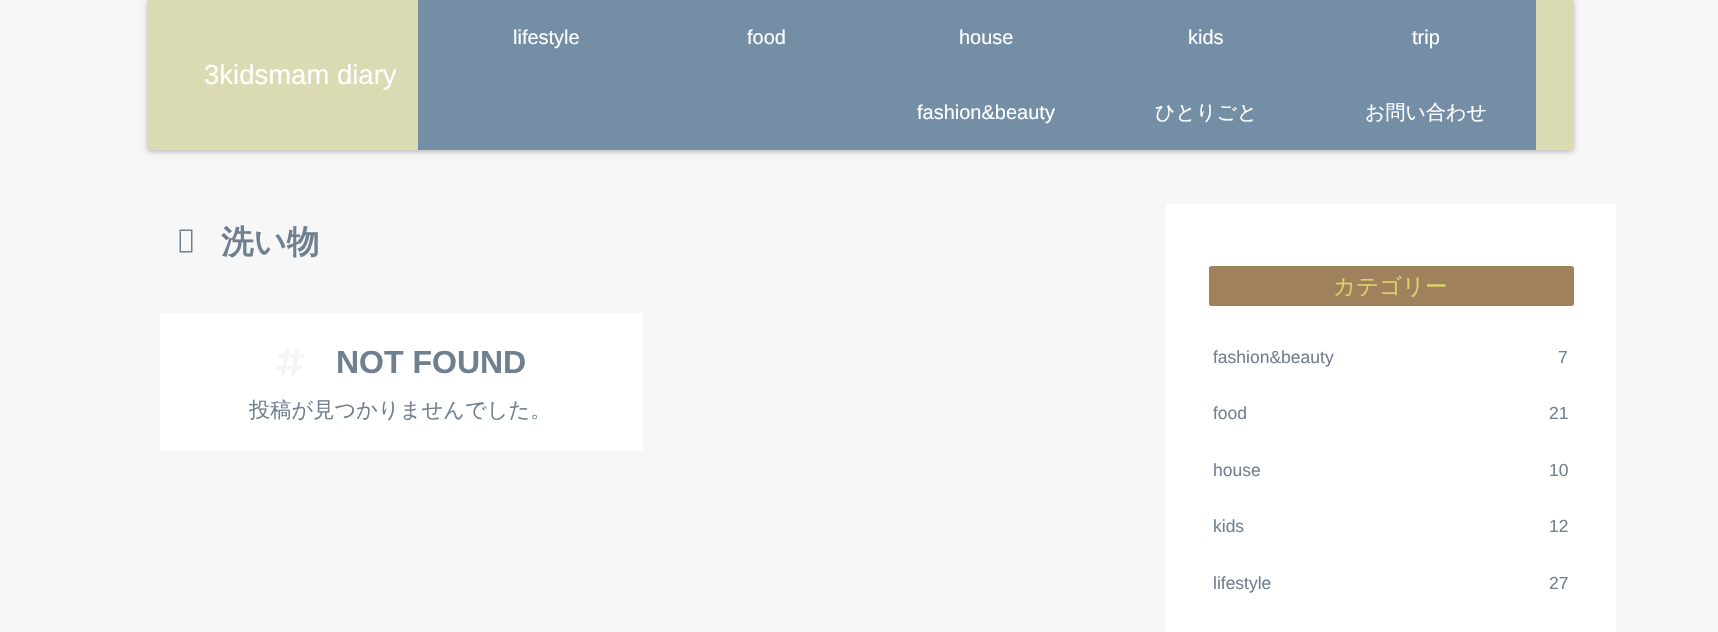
#include "include/core/SkBlurTypes.h"
#include "include/core/SkCanvas.h"
#include "include/core/SkData.h"
#include "include/core/SkFont.h"
#include "include/core/SkFontMgr.h"
#include "include/core/SkImage.h"
#include "include/core/SkMaskFilter.h"
#include "include/core/SkPaint.h"
#include "include/core/SkPathBuilder.h"
#include "include/core/SkTextBlob.h"
#include "include/effects/SkDashPathEffect.h"
#include "include/effects/SkGradientShader.h"
#include "include/utils/SkParsePath.h"

extern sk_sp<SkFontMgr> fontMgr;

void draw(SkCanvas* canvas) {
  SkPaint p;
  p.setAntiAlias(true);
  canvas->clear(SkColorSetRGB(247, 247, 247));
  p.setColor(SkColorSetRGB(169, 169, 169));
  p.setMaskFilter(SkMaskFilter::MakeBlur(kNormal_SkBlurStyle, 3));
  canvas->drawRect(SkRect::MakeLTRB(148, 1, 1573, 151), p);
  p.setMaskFilter(nullptr);
  p.setColor(SkColorSetRGB(219, 219, 179));
  canvas->drawRect(SkRect::MakeLTRB(148, 0, 1573, 150), p);
  p.setColor(SkColorSetRGB(116, 142, 165));
  canvas->drawRect(SkRect::MakeLTRB(418, 0, 1536, 150), p);
  p.setColor(SkColorSetRGB(112, 128, 144));
  canvas->drawPath(SkPathBuilder().moveTo(179.5f, 252.5f).lineTo(179.5f, 229.5f).lineTo(192.5f, 229.5f).lineTo(192.5f, 252.5f).close().moveTo(181, 251).lineTo(191, 251).lineTo(191, 231).lineTo(181, 231).close().detach(), p);
  p.setColor(SK_ColorWHITE);
  canvas->drawRect(SkRect::MakeLTRB(160, 313, 643, 451), p);
  canvas->drawImageRect(SkImages::DeferredFromEncodedData(SkData::MakeFromFileName("images/1.png")), SkRect::MakeLTRB(276, 348, 304, 376), SkSamplingOptions());
  canvas->drawRect(SkRect::MakeLTRB(1166, 204, 1616, 632), p);
  p.setColor(SkColorSetRGB(160, 129, 93));
  canvas->drawRoundRect(SkRect::MakeLTRB(1209, 266, 1574, 306), 2.5f, 2.5f, p);
  SkFont font1(fontMgr->matchFamilyStyle("Liberation Sans", SkFontStyle::Normal()), 27.5f);
  font1.setSubpixel(true);
  p.setColor(SK_ColorWHITE);
  canvas->drawString("3kidsmam diary", 204, 84, font1, p);
  SkFont font2(fontMgr->matchFamilyStyle("Liberation Sans", SkFontStyle::Normal()), 20);
  font2.setSubpixel(true);
  canvas->drawString("lifestyle", 513, 44, font2, p);
  canvas->drawString("food", 747, 44, font2, p);
  canvas->drawString("house", 959, 44, font2, p);
  canvas->drawString("kids", 1188, 44, font2, p);
  canvas->drawString("trip", 1412, 44, font2, p);
  canvas->drawString("fashion&beauty", 917, 119, font2, p);
  SkFont font3(fontMgr->matchFamilyStyle("WenQuanYi Zen Hei", SkFontStyle(500, SkFontStyle::kNormal_Width, SkFontStyle::kUpright_Slant)), 20);
  font3.setSubpixel(true);
  canvas->drawString("ひとりごと", 1155, 119, font3, p);
  canvas->drawString("お問い合わせ", 1365, 119, font3, p);
  SkFont font4(fontMgr->matchFamilyStyle("WenQuanYi Zen Hei", SkFontStyle::Bold()), 32.5f);
  font4.setSubpixel(true);
  p.setColor(SkColorSetRGB(112, 128, 144));
  canvas->drawString("洗い物", 221, 253, font4, p);
  SkFont font5(fontMgr->matchFamilyStyle("Liberation Sans", SkFontStyle::Bold()), 32);
  font5.setSubpixel(true);
  canvas->drawString("NOT FOUND", 336, 373, font5, p);
  SkFont font6(fontMgr->matchFamilyStyle("WenQuanYi Zen Hei", SkFontStyle(500, SkFontStyle::kNormal_Width, SkFontStyle::kUpright_Slant)), 21.25f);
  font6.setSubpixel(true);
  canvas->drawString("投稿が見つかりませんでした。", 249, 417, font6, p);
  SkFont font7(fontMgr->matchFamilyStyle("WenQuanYi Zen Hei", SkFontStyle(500, SkFontStyle::kNormal_Width, SkFontStyle::kUpright_Slant)), 22.5f);
  font7.setSubpixel(true);
  p.setColor(SkColorSetRGB(219, 211, 105));
  canvas->drawString("カテゴリー", 1333, 294, font7, p);
  SkFont font8(fontMgr->matchFamilyStyle("Liberation Sans", SkFontStyle::Normal()), 17.5f);
  font8.setSubpixel(true);
  p.setColor(SkColorSetRGB(112, 128, 144));
  canvas->drawString("fashion&beauty", 1213, 363, font8, p);
  canvas->drawString("7", 1558, 363, font8, p);
  canvas->drawString("food", 1213, 419, font8, p);
  canvas->drawString("21", 1549, 419, font8, p);
  canvas->drawString("house", 1213, 476, font8, p);
  canvas->drawString("10", 1549, 476, font8, p);
  canvas->drawString("kids", 1213, 532, font8, p);
  canvas->drawString("12", 1549, 532, font8, p);
  canvas->drawString("lifestyle", 1213, 589, font8, p);
  canvas->drawString("27", 1549, 589, font8, p);
}
